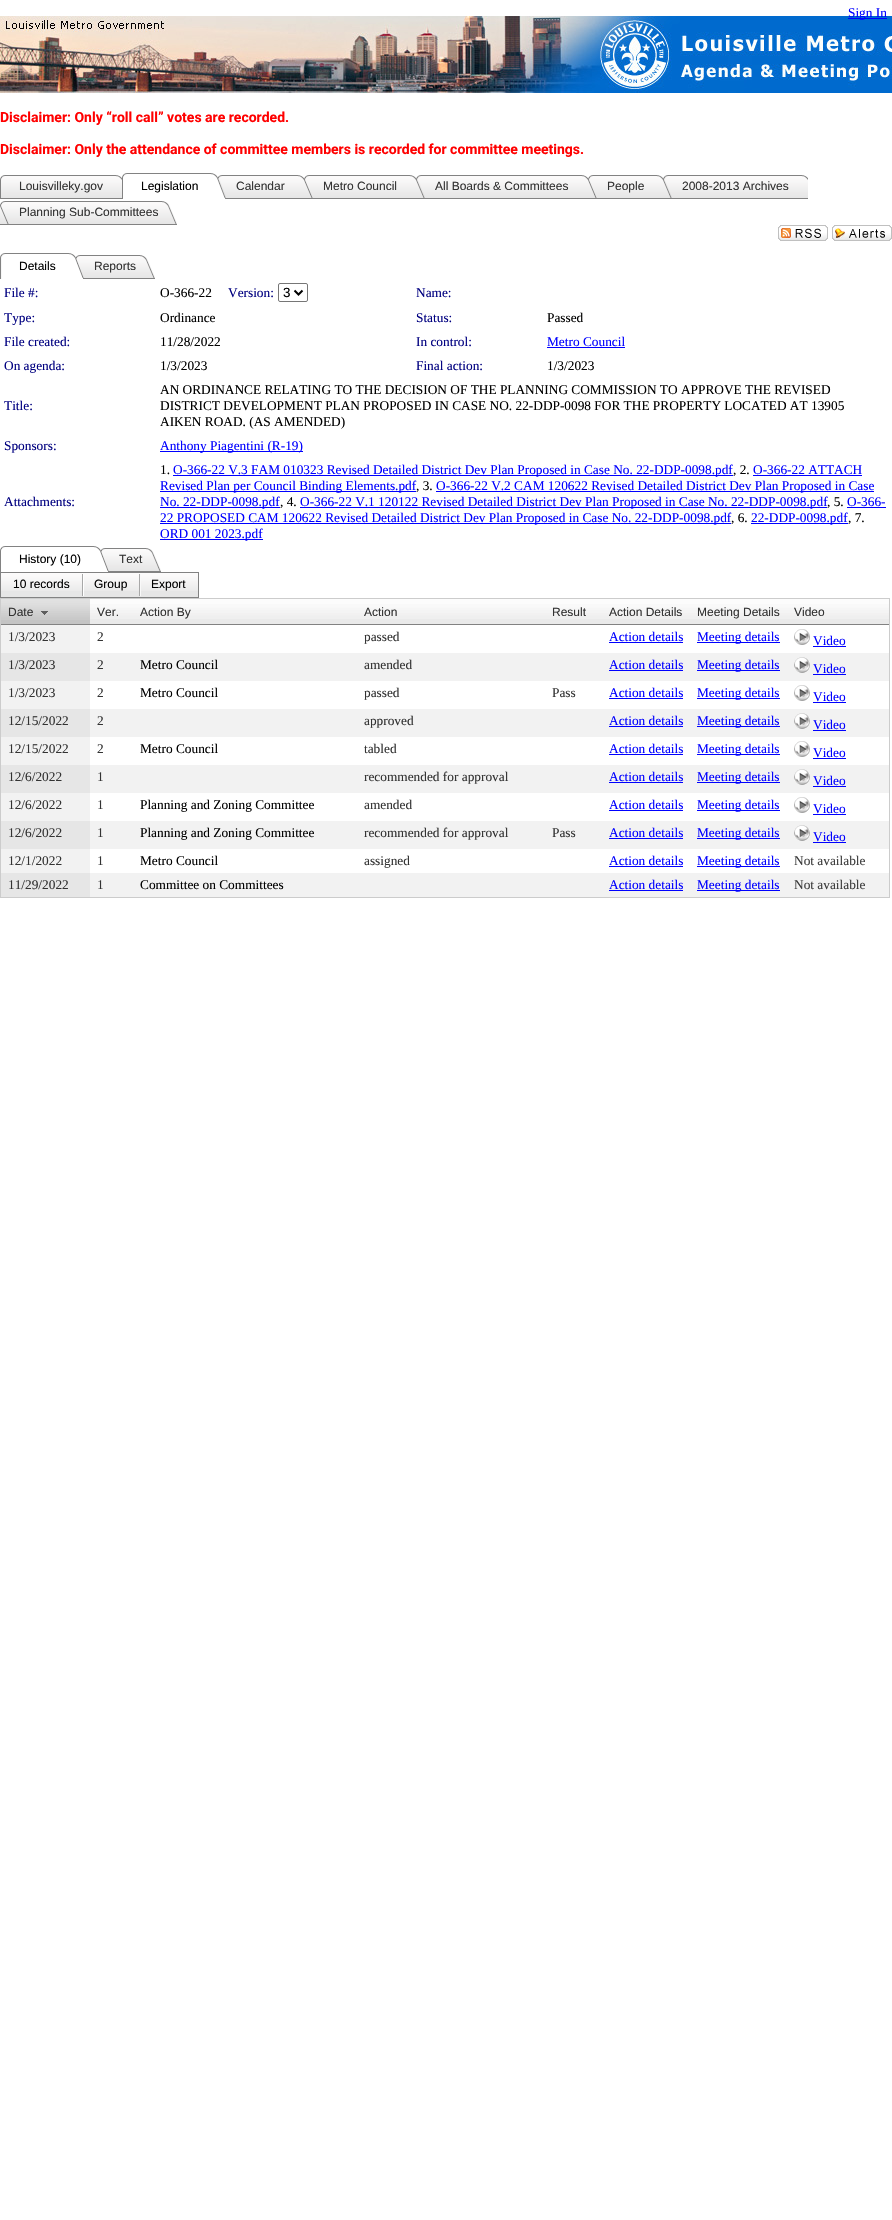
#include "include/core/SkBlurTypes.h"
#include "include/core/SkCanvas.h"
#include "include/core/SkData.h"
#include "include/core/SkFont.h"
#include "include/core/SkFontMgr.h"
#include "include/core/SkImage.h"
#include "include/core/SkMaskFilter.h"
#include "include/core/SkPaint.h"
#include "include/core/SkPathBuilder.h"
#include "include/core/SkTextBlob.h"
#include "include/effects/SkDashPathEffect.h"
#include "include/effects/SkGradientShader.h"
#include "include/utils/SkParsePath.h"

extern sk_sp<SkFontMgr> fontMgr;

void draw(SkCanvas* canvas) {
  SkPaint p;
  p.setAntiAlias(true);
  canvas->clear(SK_ColorWHITE);
  canvas->drawImageRect(SkImages::DeferredFromEncodedData(SkData::MakeFromFileName("images/1.png")), SkRect::MakeLTRB(0, 16, 892, 93), SkSamplingOptions());
  p.setColor(SkColorSetRGB(0, 0, 255));
  canvas->drawRect(SkRect::MakeLTRB(848, 18, 887, 19), p);
  canvas->drawImageRect(SkImages::DeferredFromEncodedData(SkData::MakeFromFileName("images/2.png")), SkRect::MakeLTRB(0, 175, 9, 199), SkSamplingOptions());
  canvas->drawImageRect(SkImages::DeferredFromEncodedData(SkData::MakeFromFileName("images/3.png")), SkRect::MakeLTRB(9, 175, 122, 199), SkSamplingOptions());
  canvas->drawImageRect(SkImages::DeferredFromEncodedData(SkData::MakeFromFileName("images/4.png")), SkRect::MakeLTRB(122, 173, 131, 199), SkSamplingOptions());
  canvas->drawImageRect(SkImages::DeferredFromEncodedData(SkData::MakeFromFileName("images/5.png")), SkRect::MakeLTRB(131, 173, 217, 178), SkSamplingOptions());
  canvas->drawImageRect(SkImages::DeferredFromEncodedData(SkData::MakeFromFileName("images/6.png")), SkRect::MakeLTRB(217, 175, 226, 199), SkSamplingOptions());
  canvas->drawImageRect(SkImages::DeferredFromEncodedData(SkData::MakeFromFileName("images/7.png")), SkRect::MakeLTRB(226, 175, 304, 199), SkSamplingOptions());
  canvas->drawImageRect(SkImages::DeferredFromEncodedData(SkData::MakeFromFileName("images/8.png")), SkRect::MakeLTRB(304, 175, 313, 199), SkSamplingOptions());
  canvas->drawImageRect(SkImages::DeferredFromEncodedData(SkData::MakeFromFileName("images/9.png")), SkRect::MakeLTRB(313, 175, 416, 199), SkSamplingOptions());
  canvas->drawImageRect(SkImages::DeferredFromEncodedData(SkData::MakeFromFileName("images/10.png")), SkRect::MakeLTRB(416, 175, 425, 199), SkSamplingOptions());
  canvas->drawImageRect(SkImages::DeferredFromEncodedData(SkData::MakeFromFileName("images/11.png")), SkRect::MakeLTRB(425, 175, 588, 199), SkSamplingOptions());
  canvas->drawImageRect(SkImages::DeferredFromEncodedData(SkData::MakeFromFileName("images/8.png")), SkRect::MakeLTRB(588, 175, 597, 199), SkSamplingOptions());
  canvas->drawImageRect(SkImages::DeferredFromEncodedData(SkData::MakeFromFileName("images/12.png")), SkRect::MakeLTRB(597, 175, 663, 199), SkSamplingOptions());
  canvas->drawImageRect(SkImages::DeferredFromEncodedData(SkData::MakeFromFileName("images/10.png")), SkRect::MakeLTRB(663, 175, 672, 199), SkSamplingOptions());
  canvas->drawImageRect(SkImages::DeferredFromEncodedData(SkData::MakeFromFileName("images/13.png")), SkRect::MakeLTRB(672, 175, 808, 199), SkSamplingOptions());
  canvas->drawImageRect(SkImages::DeferredFromEncodedData(SkData::MakeFromFileName("images/8.png")), SkRect::MakeLTRB(0, 201, 9, 225), SkSamplingOptions());
  canvas->drawImageRect(SkImages::DeferredFromEncodedData(SkData::MakeFromFileName("images/14.png")), SkRect::MakeLTRB(9, 201, 177, 225), SkSamplingOptions());
  canvas->drawImageRect(SkImages::DeferredFromEncodedData(SkData::MakeFromFileName("images/15.png")), SkRect::MakeLTRB(778, 225, 828, 241), SkSamplingOptions());
  canvas->drawImageRect(SkImages::DeferredFromEncodedData(SkData::MakeFromFileName("images/16.png")), SkRect::MakeLTRB(832, 225, 892, 241), SkSamplingOptions());
  canvas->drawImageRect(SkImages::DeferredFromEncodedData(SkData::MakeFromFileName("images/17.png")), SkRect::MakeLTRB(0, 253, 10, 279), SkSamplingOptions());
  canvas->drawImageRect(SkImages::DeferredFromEncodedData(SkData::MakeFromFileName("images/18.png")), SkRect::MakeLTRB(9, 253, 75, 258), SkSamplingOptions());
  canvas->drawImageRect(SkImages::DeferredFromEncodedData(SkData::MakeFromFileName("images/19.png")), SkRect::MakeLTRB(75, 255, 84, 279), SkSamplingOptions());
  canvas->drawImageRect(SkImages::DeferredFromEncodedData(SkData::MakeFromFileName("images/20.png")), SkRect::MakeLTRB(84, 255, 155, 279), SkSamplingOptions());
  p.setStyle(SkPaint::kStroke_Style);
  p.setStrokeWidth(1);
  p.setColor(SkColorSetRGB(118, 118, 118));
  canvas->drawRoundRect(SkRect::MakeLTRB(278.5f, 283.5f, 307.5f, 301.5f), 1.5f, 1.5f, p);
  p.setStrokeWidth(2);
  p.setColor(SK_ColorBLACK);
  canvas->drawPath(SkPathBuilder().moveTo(294.5f, 290.5f).lineTo(298.5f, 294.5f).lineTo(302.5f, 290.5f).detach(), p);
  p.setStyle(SkPaint::kFill_Style);
  p.setColor(SkColorSetRGB(0, 0, 255));
  canvas->drawRect(SkRect::MakeLTRB(547, 347, 625, 348), p);
  canvas->drawRect(SkRect::MakeLTRB(160, 451, 303, 452), p);
  canvas->drawRect(SkRect::MakeLTRB(173, 475, 733, 476), p);
  canvas->drawRect(SkRect::MakeLTRB(753, 475, 862, 476), p);
  canvas->drawRect(SkRect::MakeLTRB(160, 491, 416, 492), p);
  canvas->drawRect(SkRect::MakeLTRB(436, 491, 874, 492), p);
  canvas->drawRect(SkRect::MakeLTRB(160, 507, 280, 508), p);
  canvas->drawRect(SkRect::MakeLTRB(300, 507, 827, 508), p);
  canvas->drawRect(SkRect::MakeLTRB(847, 507, 886, 508), p);
  canvas->drawRect(SkRect::MakeLTRB(160, 523, 731, 524), p);
  canvas->drawRect(SkRect::MakeLTRB(751, 523, 848, 524), p);
  canvas->drawRect(SkRect::MakeLTRB(160, 539, 263, 540), p);
  canvas->drawImageRect(SkImages::DeferredFromEncodedData(SkData::MakeFromFileName("images/4.png")), SkRect::MakeLTRB(0, 546, 9, 572), SkSamplingOptions());
  canvas->drawImageRect(SkImages::DeferredFromEncodedData(SkData::MakeFromFileName("images/21.png")), SkRect::MakeLTRB(9, 546, 100, 551), SkSamplingOptions());
  canvas->drawImageRect(SkImages::DeferredFromEncodedData(SkData::MakeFromFileName("images/19.png")), SkRect::MakeLTRB(100, 548, 109, 572), SkSamplingOptions());
  canvas->drawImageRect(SkImages::DeferredFromEncodedData(SkData::MakeFromFileName("images/22.png")), SkRect::MakeLTRB(109, 548, 161, 572), SkSamplingOptions());
  p.setColor(SkColorSetRGB(230, 230, 230));
  canvas->drawRect(SkRect::MakeLTRB(1, 591, 198, 597), p);
  canvas->drawImageRect(SkImages::DeferredFromEncodedData(SkData::MakeFromFileName("images/23.png")), SkRect::MakeLTRB(1, 573, 198, 591), SkSamplingOptions());
  p.setStyle(SkPaint::kStroke_Style);
  p.setStrokeWidth(1);
  p.setColor(SkColorSetRGB(130, 130, 130));
  canvas->drawRect(SkRect::MakeLTRB(0.5f, 572.5f, 198.5f, 597.5f), p);
  canvas->drawImageRect(SkImages::DeferredFromEncodedData(SkData::MakeFromFileName("images/24.png")), SkRect::MakeLTRB(82, 574, 84, 596), SkSamplingOptions());
  canvas->drawImageRect(SkImages::DeferredFromEncodedData(SkData::MakeFromFileName("images/25.png")), SkRect::MakeLTRB(139, 574, 141, 596), SkSamplingOptions());
  p.setColor(SkColorSetRGB(204, 204, 204));
  canvas->drawRect(SkRect::MakeLTRB(0.5f, 598.5f, 889.5f, 897.5f), p);
  p.setStyle(SkPaint::kFill_Style);
  p.setColor(SkColorSetRGB(196, 196, 196));
  canvas->drawRect(SkRect::MakeLTRB(1, 620, 90, 624), p);
  canvas->drawImageRect(SkImages::DeferredFromEncodedData(SkData::MakeFromFileName("images/26.png")), SkRect::MakeLTRB(1, 599, 90, 620), SkSamplingOptions());
  p.setColor(SkColorSetRGB(130, 130, 130));
  canvas->drawRect(SkRect::MakeLTRB(1, 624, 889, 625), p);
  canvas->drawImageRect(SkImages::DeferredFromEncodedData(SkData::MakeFromFileName("images/27.png")), SkRect::MakeLTRB(41, 611, 48, 615), SkSamplingOptions());
  p.setColor(SkColorSetRGB(234, 234, 234));
  canvas->drawRect(SkRect::MakeLTRB(90, 619, 889, 624), p);
  canvas->drawImageRect(SkImages::DeferredFromEncodedData(SkData::MakeFromFileName("images/28.png")), SkRect::MakeLTRB(90, 599, 133, 619), SkSamplingOptions());
  canvas->drawImageRect(SkImages::DeferredFromEncodedData(SkData::MakeFromFileName("images/29.png")), SkRect::MakeLTRB(133, 599, 357, 619), SkSamplingOptions());
  canvas->drawImageRect(SkImages::DeferredFromEncodedData(SkData::MakeFromFileName("images/30.png")), SkRect::MakeLTRB(357, 599, 545, 619), SkSamplingOptions());
  canvas->drawImageRect(SkImages::DeferredFromEncodedData(SkData::MakeFromFileName("images/31.png")), SkRect::MakeLTRB(545, 599, 602, 619), SkSamplingOptions());
  canvas->drawImageRect(SkImages::DeferredFromEncodedData(SkData::MakeFromFileName("images/32.png")), SkRect::MakeLTRB(602, 599, 690, 619), SkSamplingOptions());
  canvas->drawImageRect(SkImages::DeferredFromEncodedData(SkData::MakeFromFileName("images/33.png")), SkRect::MakeLTRB(690, 599, 787, 619), SkSamplingOptions());
  canvas->drawImageRect(SkImages::DeferredFromEncodedData(SkData::MakeFromFileName("images/34.png")), SkRect::MakeLTRB(787, 599, 889, 619), SkSamplingOptions());
  p.setColor(SkColorSetRGB(242, 242, 242));
  canvas->drawRect(SkRect::MakeLTRB(1, 625, 90, 653), p);
  p.setColor(SkColorSetRGB(0, 0, 255));
  canvas->drawRect(SkRect::MakeLTRB(609, 642, 683, 643), p);
  canvas->drawRect(SkRect::MakeLTRB(697, 642, 780, 643), p);
  canvas->drawImageRect(SkImages::DeferredFromEncodedData(SkData::MakeFromFileName("images/35.png")), SkRect::MakeLTRB(794, 629, 810, 645), SkSamplingOptions());
  canvas->drawRect(SkRect::MakeLTRB(813, 646, 846, 647), p);
  p.setColor(SkColorSetRGB(242, 242, 242));
  canvas->drawRect(SkRect::MakeLTRB(90, 653, 889, 681), p);
  p.setColor(SkColorSetRGB(230, 230, 230));
  canvas->drawRect(SkRect::MakeLTRB(1, 653, 90, 681), p);
  p.setColor(SkColorSetRGB(0, 0, 255));
  canvas->drawRect(SkRect::MakeLTRB(609, 670, 683, 671), p);
  canvas->drawRect(SkRect::MakeLTRB(697, 670, 780, 671), p);
  canvas->drawImageRect(SkImages::DeferredFromEncodedData(SkData::MakeFromFileName("images/36.png")), SkRect::MakeLTRB(794, 657, 810, 673), SkSamplingOptions());
  canvas->drawRect(SkRect::MakeLTRB(813, 674, 846, 675), p);
  p.setColor(SkColorSetRGB(242, 242, 242));
  canvas->drawRect(SkRect::MakeLTRB(1, 681, 90, 709), p);
  p.setColor(SkColorSetRGB(0, 0, 255));
  canvas->drawRect(SkRect::MakeLTRB(609, 698, 683, 699), p);
  canvas->drawRect(SkRect::MakeLTRB(697, 698, 780, 699), p);
  canvas->drawImageRect(SkImages::DeferredFromEncodedData(SkData::MakeFromFileName("images/35.png")), SkRect::MakeLTRB(794, 685, 810, 701), SkSamplingOptions());
  canvas->drawRect(SkRect::MakeLTRB(813, 702, 846, 703), p);
  p.setColor(SkColorSetRGB(242, 242, 242));
  canvas->drawRect(SkRect::MakeLTRB(90, 709, 889, 737), p);
  p.setColor(SkColorSetRGB(230, 230, 230));
  canvas->drawRect(SkRect::MakeLTRB(1, 709, 90, 737), p);
  p.setColor(SkColorSetRGB(0, 0, 255));
  canvas->drawRect(SkRect::MakeLTRB(609, 726, 683, 727), p);
  canvas->drawRect(SkRect::MakeLTRB(697, 726, 780, 727), p);
  canvas->drawImageRect(SkImages::DeferredFromEncodedData(SkData::MakeFromFileName("images/36.png")), SkRect::MakeLTRB(794, 713, 810, 729), SkSamplingOptions());
  canvas->drawRect(SkRect::MakeLTRB(813, 730, 846, 731), p);
  p.setColor(SkColorSetRGB(242, 242, 242));
  canvas->drawRect(SkRect::MakeLTRB(1, 737, 90, 765), p);
  p.setColor(SkColorSetRGB(0, 0, 255));
  canvas->drawRect(SkRect::MakeLTRB(609, 754, 683, 755), p);
  canvas->drawRect(SkRect::MakeLTRB(697, 754, 780, 755), p);
  canvas->drawImageRect(SkImages::DeferredFromEncodedData(SkData::MakeFromFileName("images/35.png")), SkRect::MakeLTRB(794, 741, 810, 757), SkSamplingOptions());
  canvas->drawRect(SkRect::MakeLTRB(813, 758, 846, 759), p);
  p.setColor(SkColorSetRGB(242, 242, 242));
  canvas->drawRect(SkRect::MakeLTRB(90, 765, 889, 793), p);
  p.setColor(SkColorSetRGB(230, 230, 230));
  canvas->drawRect(SkRect::MakeLTRB(1, 765, 90, 793), p);
  p.setColor(SkColorSetRGB(0, 0, 255));
  canvas->drawRect(SkRect::MakeLTRB(609, 782, 683, 783), p);
  canvas->drawRect(SkRect::MakeLTRB(697, 782, 780, 783), p);
  canvas->drawImageRect(SkImages::DeferredFromEncodedData(SkData::MakeFromFileName("images/36.png")), SkRect::MakeLTRB(794, 769, 810, 785), SkSamplingOptions());
  canvas->drawRect(SkRect::MakeLTRB(813, 786, 846, 787), p);
  p.setColor(SkColorSetRGB(242, 242, 242));
  canvas->drawRect(SkRect::MakeLTRB(1, 793, 90, 821), p);
  p.setColor(SkColorSetRGB(0, 0, 255));
  canvas->drawRect(SkRect::MakeLTRB(609, 810, 683, 811), p);
  canvas->drawRect(SkRect::MakeLTRB(697, 810, 780, 811), p);
  canvas->drawImageRect(SkImages::DeferredFromEncodedData(SkData::MakeFromFileName("images/35.png")), SkRect::MakeLTRB(794, 797, 810, 813), SkSamplingOptions());
  canvas->drawRect(SkRect::MakeLTRB(813, 814, 846, 815), p);
  p.setColor(SkColorSetRGB(242, 242, 242));
  canvas->drawRect(SkRect::MakeLTRB(90, 821, 889, 849), p);
  p.setColor(SkColorSetRGB(230, 230, 230));
  canvas->drawRect(SkRect::MakeLTRB(1, 821, 90, 849), p);
  p.setColor(SkColorSetRGB(0, 0, 255));
  canvas->drawRect(SkRect::MakeLTRB(609, 838, 683, 839), p);
  canvas->drawRect(SkRect::MakeLTRB(697, 838, 780, 839), p);
  canvas->drawImageRect(SkImages::DeferredFromEncodedData(SkData::MakeFromFileName("images/36.png")), SkRect::MakeLTRB(794, 825, 810, 841), SkSamplingOptions());
  canvas->drawRect(SkRect::MakeLTRB(813, 842, 846, 843), p);
  p.setColor(SkColorSetRGB(242, 242, 242));
  canvas->drawRect(SkRect::MakeLTRB(1, 849, 90, 873), p);
  p.setColor(SkColorSetRGB(0, 0, 255));
  canvas->drawRect(SkRect::MakeLTRB(609, 866, 683, 867), p);
  canvas->drawRect(SkRect::MakeLTRB(697, 866, 780, 867), p);
  p.setColor(SkColorSetRGB(242, 242, 242));
  canvas->drawRect(SkRect::MakeLTRB(90, 873, 889, 897), p);
  p.setColor(SkColorSetRGB(230, 230, 230));
  canvas->drawRect(SkRect::MakeLTRB(1, 873, 90, 897), p);
  p.setColor(SkColorSetRGB(0, 0, 255));
  canvas->drawRect(SkRect::MakeLTRB(609, 890, 683, 891), p);
  canvas->drawRect(SkRect::MakeLTRB(697, 890, 780, 891), p);
  SkFont font1(fontMgr->matchFamilyStyle("Liberation Serif", SkFontStyle::Normal()), 13.33f);
  font1.setSubpixel(true);
  canvas->drawString("Sign In", 848, 17, font1, p);
  SkFont font2(fontMgr->matchFamilyStyle("Roboto", SkFontStyle::Bold()), 14);
  font2.setSubpixel(true);
  p.setColor(SkColorSetRGB(255, 0, 0));
  canvas->drawString("Disclaimer: Only “roll call” votes are recorded.", 0, 122, font2, p);
  canvas->drawString("Disclaimer: Only the attendance of committee members is recorded for committee meetings.", 0, 154, font2, p);
  SkFont font3(fontMgr->matchFamilyStyle("Liberation Sans", SkFontStyle::Normal()), 12);
  font3.setSubpixel(true);
  p.setColor(SkColorSetRGB(51, 51, 51));
  canvas->drawString("Louisvilleky.gov", 19, 190, font3, p);
  p.setColor(SK_ColorBLACK);
  canvas->drawString("Legislation", 141, 190, font3, p);
  p.setColor(SkColorSetRGB(51, 51, 51));
  canvas->drawString("Calendar", 236, 190, font3, p);
  canvas->drawString("Metro Council", 323, 190, font3, p);
  canvas->drawString("All Boards & Committees", 435, 190, font3, p);
  canvas->drawString("People", 607, 190, font3, p);
  canvas->drawString("2008-2013 Archives", 682, 190, font3, p);
  canvas->drawString("Planning Sub-Committees", 19, 216, font3, p);
  p.setColor(SK_ColorBLACK);
  canvas->drawString("Details", 19, 270, font3, p);
  p.setColor(SkColorSetRGB(51, 51, 51));
  canvas->drawString("Reports", 94, 270, font3, p);
  p.setColor(SkColorSetRGB(0, 0, 128));
  canvas->drawString("File #:", 4, 297, font1, p);
  p.setColor(SK_ColorBLACK);
  canvas->drawString("O-366-22", 160, 297, font1, p);
  p.setColor(SkColorSetRGB(0, 0, 128));
  canvas->drawString("Version:", 228, 297, font1, p);
  SkFont font4(fontMgr->matchFamilyStyle("Liberation Sans", SkFontStyle::Normal()), 13.33f);
  font4.setSubpixel(true);
  p.setColor(SK_ColorBLACK);
  canvas->drawString("3", 283, 297, font4, p);
  p.setColor(SkColorSetRGB(0, 0, 128));
  canvas->drawString("Name:", 416, 297, font1, p);
  canvas->drawString("Type:", 4, 322, font1, p);
  p.setColor(SK_ColorBLACK);
  canvas->drawString("Ordinance", 160, 322, font1, p);
  p.setColor(SkColorSetRGB(0, 0, 128));
  canvas->drawString("Status:", 416, 322, font1, p);
  p.setColor(SK_ColorBLACK);
  canvas->drawString("Passed", 547, 322, font1, p);
  p.setColor(SkColorSetRGB(0, 0, 128));
  canvas->drawString("File created:", 4, 346, font1, p);
  p.setColor(SK_ColorBLACK);
  canvas->drawString("11/28/2022", 160, 346, font1, p);
  p.setColor(SkColorSetRGB(0, 0, 128));
  canvas->drawString("In control:", 416, 346, font1, p);
  p.setColor(SkColorSetRGB(0, 0, 255));
  canvas->drawString("Metro Council", 547, 346, font1, p);
  p.setColor(SkColorSetRGB(0, 0, 128));
  canvas->drawString("On agenda:", 4, 370, font1, p);
  p.setColor(SK_ColorBLACK);
  canvas->drawString("1/3/2023", 160, 370, font1, p);
  p.setColor(SkColorSetRGB(0, 0, 128));
  canvas->drawString("Final action:", 416, 370, font1, p);
  p.setColor(SK_ColorBLACK);
  canvas->drawString("1/3/2023", 547, 370, font1, p);
  p.setColor(SkColorSetRGB(0, 0, 128));
  canvas->drawString("Title:", 4, 410, font1, p);
  p.setColor(SK_ColorBLACK);
  canvas->drawString("AN ORDINANCE RELATING TO THE DECISION OF THE PLANNING COMMISSION TO APPROVE THE REVISED", 160, 394, font1, p);
  canvas->drawString("DISTRICT DEVELOPMENT PLAN PROPOSED IN CASE NO. 22-DDP-0098 FOR THE PROPERTY LOCATED AT 13905", 160, 410, font1, p);
  canvas->drawString("AIKEN ROAD. (AS AMENDED)", 160, 426, font1, p);
  p.setColor(SkColorSetRGB(0, 0, 128));
  canvas->drawString("Sponsors:", 4, 450, font1, p);
  p.setColor(SkColorSetRGB(0, 0, 255));
  canvas->drawString("Anthony Piagentini (R-19)", 160, 450, font1, p);
  p.setColor(SkColorSetRGB(0, 0, 128));
  canvas->drawString("Attachments:", 4, 506, font1, p);
  p.setColor(SK_ColorBLACK);
  canvas->drawString("1.", 160, 474, font1, p);
  p.setColor(SkColorSetRGB(0, 0, 255));
  canvas->drawString("O-366-22 V.3 FAM 010323 Revised Detailed District Dev Plan Proposed in Case No. 22-DDP-0098.pdf", 173, 474, font1, p);
  p.setColor(SK_ColorBLACK);
  canvas->drawString(", 2.", 733, 474, font1, p);
  p.setColor(SkColorSetRGB(0, 0, 255));
  canvas->drawString("O-366-22 ATTACH", 753, 474, font1, p);
  canvas->drawString("Revised Plan per Council Binding Elements.pdf", 160, 490, font1, p);
  p.setColor(SK_ColorBLACK);
  canvas->drawString(", 3.", 416, 490, font1, p);
  p.setColor(SkColorSetRGB(0, 0, 255));
  canvas->drawString("O-366-22 V.2 CAM 120622 Revised Detailed District Dev Plan Proposed in Case", 436, 490, font1, p);
  canvas->drawString("No. 22-DDP-0098.pdf", 160, 506, font1, p);
  p.setColor(SK_ColorBLACK);
  canvas->drawString(", 4.", 280, 506, font1, p);
  p.setColor(SkColorSetRGB(0, 0, 255));
  canvas->drawString("O-366-22 V.1 120122 Revised Detailed District Dev Plan Proposed in Case No. 22-DDP-0098.pdf", 300, 506, font1, p);
  p.setColor(SK_ColorBLACK);
  canvas->drawString(", 5.", 827, 506, font1, p);
  p.setColor(SkColorSetRGB(0, 0, 255));
  canvas->drawString("O-366-", 847, 506, font1, p);
  canvas->drawString("22 PROPOSED CAM 120622 Revised Detailed District Dev Plan Proposed in Case No. 22-DDP-0098.pdf", 160, 522, font1, p);
  p.setColor(SK_ColorBLACK);
  canvas->drawString(", 6.", 731, 522, font1, p);
  p.setColor(SkColorSetRGB(0, 0, 255));
  canvas->drawString("22-DDP-0098.pdf", 751, 522, font1, p);
  p.setColor(SK_ColorBLACK);
  canvas->drawString(", 7.", 848, 522, font1, p);
  p.setColor(SkColorSetRGB(0, 0, 255));
  canvas->drawString("ORD 001 2023.pdf", 160, 538, font1, p);
  p.setColor(SK_ColorBLACK);
  canvas->drawString("History (10)", 19, 563, font3, p);
  p.setColor(SkColorSetRGB(51, 51, 51));
  canvas->drawString("Text", 119, 563, font3, p);
  p.setColor(SK_ColorBLACK);
  canvas->drawString("10 records", 13, 588, font3, p);
  canvas->drawString("Group", 94, 588, font3, p);
  canvas->drawString("Export", 151, 588, font3, p);
  p.setColor(SkColorSetRGB(51, 51, 51));
  canvas->drawString("Date", 8, 616, font3, p);
  canvas->drawString("Ver.", 97, 616, font3, p);
  canvas->drawString("Action By", 140, 616, font3, p);
  canvas->drawString("Action", 364, 616, font3, p);
  canvas->drawString("Result", 552, 616, font3, p);
  canvas->drawString("Action Details", 609, 616, font3, p);
  canvas->drawString("Meeting Details", 697, 616, font3, p);
  canvas->drawString("Video", 794, 616, font3, p);
  canvas->drawString("1/3/2023", 8, 641, font1, p);
  canvas->drawString("2", 97, 641, font1, p);
  canvas->drawString("passed", 364, 641, font1, p);
  p.setColor(SkColorSetRGB(0, 0, 255));
  canvas->drawString("Action details", 609, 641, font1, p);
  canvas->drawString("Meeting details", 697, 641, font1, p);
  canvas->drawString("Video", 813, 645, font1, p);
  p.setColor(SkColorSetRGB(51, 51, 51));
  canvas->drawString("1/3/2023", 8, 669, font1, p);
  canvas->drawString("2", 97, 669, font1, p);
  p.setColor(SK_ColorBLACK);
  canvas->drawString("Metro Council", 140, 669, font1, p);
  p.setColor(SkColorSetRGB(51, 51, 51));
  canvas->drawString("amended", 364, 669, font1, p);
  p.setColor(SkColorSetRGB(0, 0, 255));
  canvas->drawString("Action details", 609, 669, font1, p);
  canvas->drawString("Meeting details", 697, 669, font1, p);
  canvas->drawString("Video", 813, 673, font1, p);
  p.setColor(SkColorSetRGB(51, 51, 51));
  canvas->drawString("1/3/2023", 8, 697, font1, p);
  canvas->drawString("2", 97, 697, font1, p);
  p.setColor(SK_ColorBLACK);
  canvas->drawString("Metro Council", 140, 697, font1, p);
  p.setColor(SkColorSetRGB(51, 51, 51));
  canvas->drawString("passed", 364, 697, font1, p);
  canvas->drawString("Pass", 552, 697, font1, p);
  p.setColor(SkColorSetRGB(0, 0, 255));
  canvas->drawString("Action details", 609, 697, font1, p);
  canvas->drawString("Meeting details", 697, 697, font1, p);
  canvas->drawString("Video", 813, 701, font1, p);
  p.setColor(SkColorSetRGB(51, 51, 51));
  canvas->drawString("12/15/2022", 8, 725, font1, p);
  canvas->drawString("2", 97, 725, font1, p);
  canvas->drawString("approved", 364, 725, font1, p);
  p.setColor(SkColorSetRGB(0, 0, 255));
  canvas->drawString("Action details", 609, 725, font1, p);
  canvas->drawString("Meeting details", 697, 725, font1, p);
  canvas->drawString("Video", 813, 729, font1, p);
  p.setColor(SkColorSetRGB(51, 51, 51));
  canvas->drawString("12/15/2022", 8, 753, font1, p);
  canvas->drawString("2", 97, 753, font1, p);
  p.setColor(SK_ColorBLACK);
  canvas->drawString("Metro Council", 140, 753, font1, p);
  p.setColor(SkColorSetRGB(51, 51, 51));
  canvas->drawString("tabled", 364, 753, font1, p);
  p.setColor(SkColorSetRGB(0, 0, 255));
  canvas->drawString("Action details", 609, 753, font1, p);
  canvas->drawString("Meeting details", 697, 753, font1, p);
  canvas->drawString("Video", 813, 757, font1, p);
  p.setColor(SkColorSetRGB(51, 51, 51));
  canvas->drawString("12/6/2022", 8, 781, font1, p);
  canvas->drawString("1", 97, 781, font1, p);
  canvas->drawString("recommended for approval", 364, 781, font1, p);
  p.setColor(SkColorSetRGB(0, 0, 255));
  canvas->drawString("Action details", 609, 781, font1, p);
  canvas->drawString("Meeting details", 697, 781, font1, p);
  canvas->drawString("Video", 813, 785, font1, p);
  p.setColor(SkColorSetRGB(51, 51, 51));
  canvas->drawString("12/6/2022", 8, 809, font1, p);
  canvas->drawString("1", 97, 809, font1, p);
  p.setColor(SK_ColorBLACK);
  canvas->drawString("Planning and Zoning Committee", 140, 809, font1, p);
  p.setColor(SkColorSetRGB(51, 51, 51));
  canvas->drawString("amended", 364, 809, font1, p);
  p.setColor(SkColorSetRGB(0, 0, 255));
  canvas->drawString("Action details", 609, 809, font1, p);
  canvas->drawString("Meeting details", 697, 809, font1, p);
  canvas->drawString("Video", 813, 813, font1, p);
  p.setColor(SkColorSetRGB(51, 51, 51));
  canvas->drawString("12/6/2022", 8, 837, font1, p);
  canvas->drawString("1", 97, 837, font1, p);
  p.setColor(SK_ColorBLACK);
  canvas->drawString("Planning and Zoning Committee", 140, 837, font1, p);
  p.setColor(SkColorSetRGB(51, 51, 51));
  canvas->drawString("recommended for approval", 364, 837, font1, p);
  canvas->drawString("Pass", 552, 837, font1, p);
  p.setColor(SkColorSetRGB(0, 0, 255));
  canvas->drawString("Action details", 609, 837, font1, p);
  canvas->drawString("Meeting details", 697, 837, font1, p);
  canvas->drawString("Video", 813, 841, font1, p);
  p.setColor(SkColorSetRGB(51, 51, 51));
  canvas->drawString("12/1/2022", 8, 865, font1, p);
  canvas->drawString("1", 97, 865, font1, p);
  p.setColor(SK_ColorBLACK);
  canvas->drawString("Metro Council", 140, 865, font1, p);
  p.setColor(SkColorSetRGB(51, 51, 51));
  canvas->drawString("assigned", 364, 865, font1, p);
  p.setColor(SkColorSetRGB(0, 0, 255));
  canvas->drawString("Action details", 609, 865, font1, p);
  canvas->drawString("Meeting details", 697, 865, font1, p);
  p.setColor(SkColorSetRGB(61, 61, 61));
  canvas->drawString("Not available", 794, 865, font1, p);
  p.setColor(SkColorSetRGB(51, 51, 51));
  canvas->drawString("11/29/2022", 8, 889, font1, p);
  canvas->drawString("1", 97, 889, font1, p);
  p.setColor(SK_ColorBLACK);
  canvas->drawString("Committee on Committees", 140, 889, font1, p);
  p.setColor(SkColorSetRGB(0, 0, 255));
  canvas->drawString("Action details", 609, 889, font1, p);
  canvas->drawString("Meeting details", 697, 889, font1, p);
  p.setColor(SkColorSetRGB(61, 61, 61));
  canvas->drawString("Not available", 794, 889, font1, p);
}
